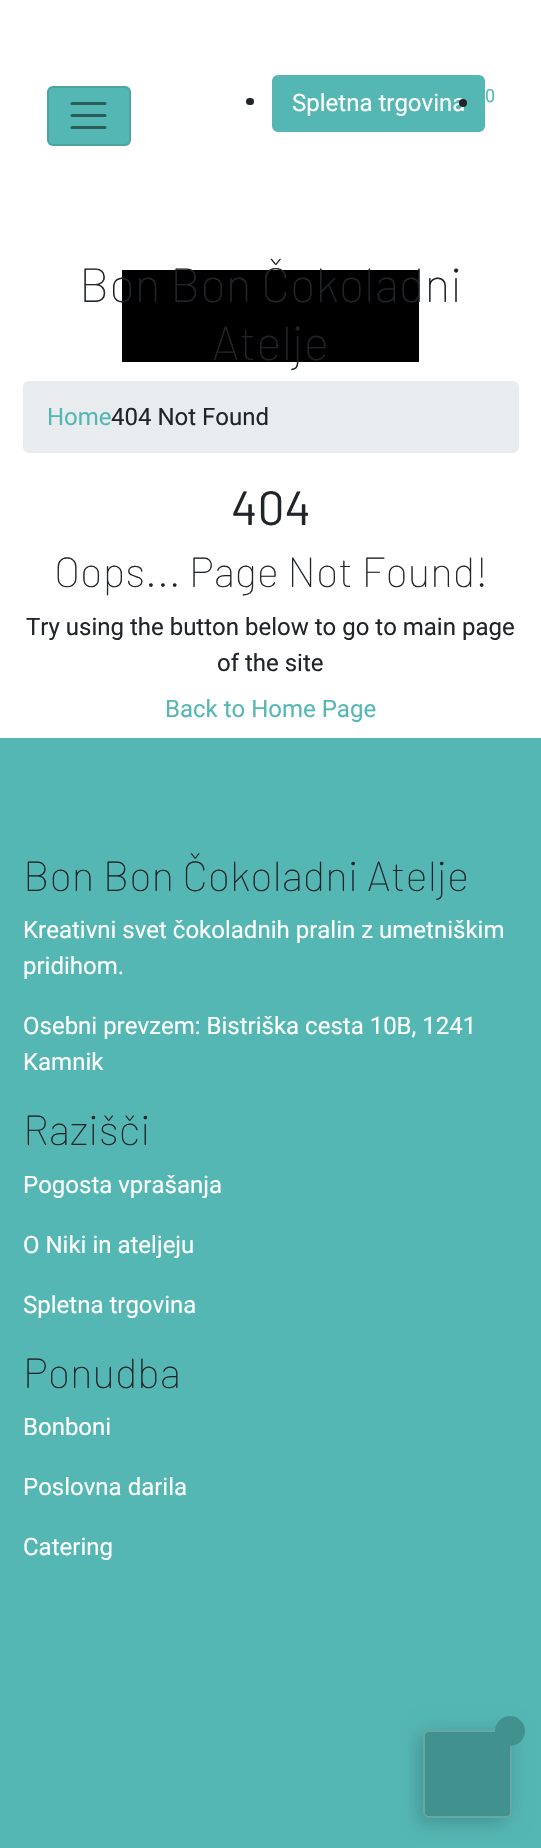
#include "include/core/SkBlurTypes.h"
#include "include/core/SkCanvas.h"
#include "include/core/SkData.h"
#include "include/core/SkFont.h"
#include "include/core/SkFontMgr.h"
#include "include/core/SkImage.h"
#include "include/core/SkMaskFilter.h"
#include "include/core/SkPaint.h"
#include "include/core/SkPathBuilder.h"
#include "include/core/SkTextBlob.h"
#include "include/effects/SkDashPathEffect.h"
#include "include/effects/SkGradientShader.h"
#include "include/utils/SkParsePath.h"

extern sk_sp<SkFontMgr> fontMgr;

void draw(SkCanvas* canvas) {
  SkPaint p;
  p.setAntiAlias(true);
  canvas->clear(SK_ColorWHITE);
  p.setColor(SkColorSetRGB(84, 183, 180));
  canvas->drawRoundRect(SkRect::MakeLTRB(47, 86, 131, 146), 6, 6, p);
  p.setStyle(SkPaint::kStroke_Style);
  p.setStrokeWidth(2);
  p.setColor(SkColorSetARGB(26, 0, 0, 0));
  canvas->drawRoundRect(SkRect::MakeLTRB(48, 87, 130, 145), 5, 5, p);
  p.setStrokeWidth(3);
  p.setStrokeCap(SkPaint::kRound_Cap);
  p.setColor(SkColorSetRGB(42, 92, 90));
  canvas->drawPath(SkPathBuilder().moveTo(72, 103.5f).lineTo(105, 103.5f).moveTo(72, 115.5f).lineTo(105, 115.5f).moveTo(72, 127.5f).lineTo(105, 127.5f).detach(), p);
  p.setStyle(SkPaint::kFill_Style);
  p.setColor(SkColorSetRGB(33, 37, 41));
  canvas->drawRoundRect(SkRect::MakeLTRB(246, 98, 254, 105), 3.5f, 3.5f, p);
  p.setColor(SkColorSetRGB(84, 183, 180));
  canvas->drawRoundRect(SkRect::MakeLTRB(273, 76, 484, 131), 5, 5, p);
  p.setStyle(SkPaint::kStroke_Style);
  p.setStrokeWidth(2);
  p.setStrokeCap(SkPaint::kButt_Cap);
  canvas->drawRoundRect(SkRect::MakeLTRB(273, 76, 484, 131), 5, 5, p);
  p.setStyle(SkPaint::kFill_Style);
  p.setColor(SK_ColorBLACK);
  canvas->drawRect(SkRect::MakeLTRB(122, 270, 419, 362), p);
  p.setColor(SkColorSetRGB(233, 236, 239));
  canvas->drawRoundRect(SkRect::MakeLTRB(23, 381, 519, 453), 6, 6, p);
  p.setColor(SkColorSetRGB(84, 183, 180));
  canvas->drawRect(SkRect::MakeLTRB(0, 738, 541, 1848), p);
  p.setColor(SkColorSetARGB(26, 0, 0, 0));
  p.setMaskFilter(SkMaskFilter::MakeBlur(kNormal_SkBlurStyle, 7.5f));
  canvas->drawRoundRect(SkRect::MakeLTRB(416, 1737, 504, 1826), 6, 6, p);
  p.setMaskFilter(nullptr);
  p.setMaskFilter(SkMaskFilter::MakeBlur(kNormal_SkBlurStyle, 11));
  canvas->drawRoundRect(SkRect::MakeLTRB(423, 1730, 512, 1818), 6, 6, p);
  p.setMaskFilter(nullptr);
  p.setColor(SkColorSetRGB(65, 145, 142));
  canvas->drawRoundRect(SkRect::MakeLTRB(423, 1730, 512, 1818), 6, 6, p);
  p.setStyle(SkPaint::kStroke_Style);
  p.setColor(SkColorSetARGB(51, 255, 255, 255));
  canvas->drawRoundRect(SkRect::MakeLTRB(424, 1731, 511, 1817), 5, 5, p);
  p.setStyle(SkPaint::kFill_Style);
  p.setColor(SkColorSetRGB(65, 145, 142));
  canvas->drawCircle(510, 1731, 15, p);
  SkFont font1(fontMgr->matchFamilyStyle("Roboto", SkFontStyle::Normal()), 24);
  font1.setSubpixel(true);
  p.setColor(SK_ColorWHITE);
  canvas->drawString("Spletna trgovina", 292, 111, font1, p);
  p.setColor(SkColorSetRGB(33, 37, 41));
  canvas->drawCircle(463, 103, 4, p);
  SkFont font2(fontMgr->matchFamilyStyle("Roboto", SkFontStyle::Normal()), 18);
  font2.setSubpixel(true);
  p.setColor(SkColorSetRGB(84, 183, 180));
  canvas->drawString("0", 485, 102, font2, p);
  SkFont font3(fontMgr->matchFamilyStyle("Barlow", SkFontStyle(100, SkFontStyle::kNormal_Width, SkFontStyle::kUpright_Slant)), 48);
  font3.setSubpixel(true);
  p.setColor(SkColorSetRGB(33, 37, 41));
  canvas->drawString("Bon Bon Čokoladni", 79, 302, font3, p);
  canvas->drawString("Atelje", 212, 360, font3, p);
  p.setColor(SkColorSetRGB(84, 183, 180));
  canvas->drawString("Home", 47, 425, font1, p);
  p.setColor(SkColorSetRGB(33, 37, 41));
  canvas->drawString("404 Not Found", 111, 425, font1, p);
  SkFont font4(fontMgr->matchFamilyStyle("Barlow", SkFontStyle::Normal()), 48);
  font4.setSubpixel(true);
  canvas->drawString("404", 231, 525, font4, p);
  SkFont font5(fontMgr->matchFamilyStyle("Barlow", SkFontStyle(100, SkFontStyle::kNormal_Width, SkFontStyle::kUpright_Slant)), 42);
  font5.setSubpixel(true);
  canvas->drawString("Oops... Page Not Found!", 54, 587, font5, p);
  canvas->drawString("Try using the button below to go to main page", 26, 635, font1, p);
  canvas->drawString("of the site", 217, 671, font1, p);
  p.setColor(SkColorSetRGB(84, 183, 180));
  canvas->drawString("Back to Home Page", 165, 717, font1, p);
  p.setColor(SkColorSetRGB(33, 37, 41));
  canvas->drawString("Bon Bon Čokoladni Atelje", 23, 891, font5, p);
  p.setColor(SK_ColorWHITE);
  canvas->drawString("Kreativni svet čokoladnih pralin z umetniškim", 23, 938, font1, p);
  canvas->drawString("pridihom.", 23, 974, font1, p);
  canvas->drawString("Osebni prevzem: Bistriška cesta 10B, 1241", 23, 1034, font1, p);
  canvas->drawString("Kamnik", 23, 1070, font1, p);
  p.setColor(SkColorSetRGB(33, 37, 41));
  canvas->drawString("Razišči", 23, 1145, font5, p);
  p.setColor(SK_ColorWHITE);
  canvas->drawString("Pogosta vprašanja", 23, 1193, font1, p);
  canvas->drawString("O Niki in ateljeju", 23, 1253, font1, p);
  canvas->drawString("Spletna trgovina", 23, 1313, font1, p);
  p.setColor(SkColorSetRGB(33, 37, 41));
  canvas->drawString("Ponudba", 23, 1388, font5, p);
  p.setColor(SK_ColorWHITE);
  canvas->drawString("Bonboni", 23, 1435, font1, p);
  canvas->drawString("Poslovna darila", 23, 1495, font1, p);
  canvas->drawString("Catering", 23, 1555, font1, p);
}
